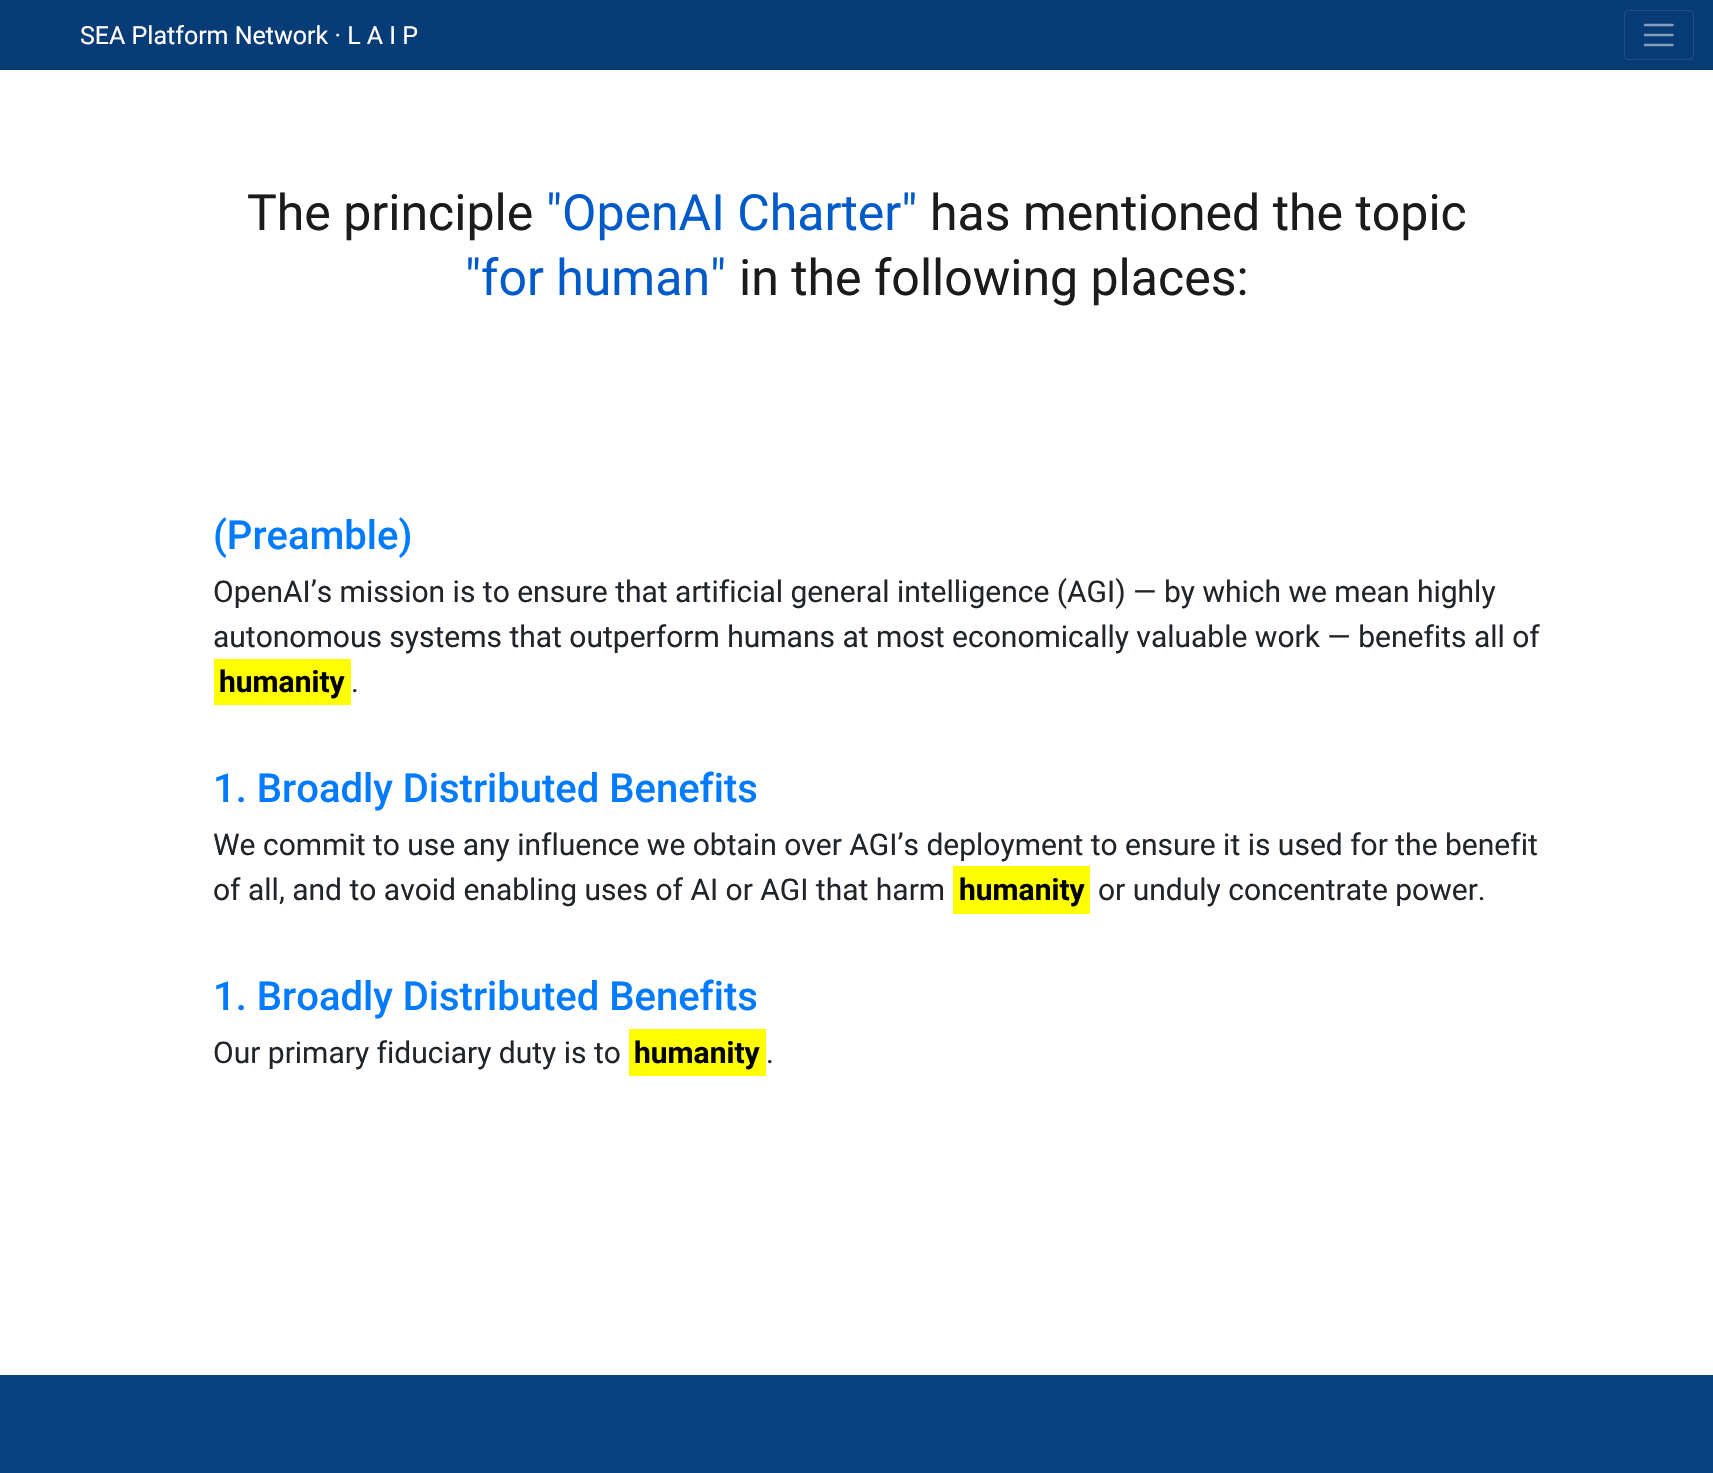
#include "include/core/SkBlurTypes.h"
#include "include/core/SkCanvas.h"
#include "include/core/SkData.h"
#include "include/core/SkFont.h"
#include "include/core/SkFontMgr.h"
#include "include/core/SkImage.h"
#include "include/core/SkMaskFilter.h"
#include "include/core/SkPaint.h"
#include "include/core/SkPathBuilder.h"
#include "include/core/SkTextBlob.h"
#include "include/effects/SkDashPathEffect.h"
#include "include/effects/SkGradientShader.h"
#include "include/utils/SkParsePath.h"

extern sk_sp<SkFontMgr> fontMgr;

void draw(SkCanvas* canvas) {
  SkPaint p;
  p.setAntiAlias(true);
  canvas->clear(SK_ColorWHITE);
  p.setColor(SkColorSetRGB(8, 60, 119));
  canvas->drawRect(SkRect::MakeLTRB(0, 0, 1713, 70), p);
  p.setStyle(SkPaint::kStroke_Style);
  p.setStrokeWidth(1);
  p.setColor(SkColorSetRGB(33, 80, 133));
  canvas->drawRoundRect(SkRect::MakeLTRB(1624.5f, 10.5f, 1693.5f, 59.5f), 4.5f, 4.5f, p);
  p.setStrokeWidth(2.5f);
  p.setStrokeCap(SkPaint::kRound_Cap);
  p.setColor(SkColorSetRGB(132, 158, 187));
  canvas->drawPath(SkPathBuilder().moveTo(1645, 25).lineTo(1672.5f, 25).moveTo(1645, 35).lineTo(1672.5f, 35).moveTo(1645, 45).lineTo(1672.5f, 45).detach(), p);
  p.setStyle(SkPaint::kFill_Style);
  p.setColor(SkColorSetRGB(255, 255, 0));
  canvas->drawRect(SkRect::MakeLTRB(214, 659, 351, 705), p);
  canvas->drawRect(SkRect::MakeLTRB(953, 866, 1090, 914), p);
  canvas->drawRect(SkRect::MakeLTRB(629, 1029, 766, 1076), p);
  p.setColor(SkColorSetRGB(9, 65, 131));
  canvas->drawRect(SkRect::MakeLTRB(0, 1375, 1713, 1473), p);
  SkFont font1(fontMgr->matchFamilyStyle("Roboto", SkFontStyle::Normal()), 25);
  font1.setSubpixel(true);
  p.setColor(SK_ColorWHITE);
  canvas->drawString("SEA Platform Network · L A I P", 80, 44, font1, p);
  SkFont font2(fontMgr->matchFamilyStyle("Roboto", SkFontStyle::Normal()), 50);
  font2.setSubpixel(true);
  p.setColor(SkColorSetRGB(27, 27, 27));
  canvas->drawString("The principle", 247, 230, font2, p);
  p.setColor(SkColorSetRGB(0, 90, 202));
  canvas->drawString("\"OpenAI Charter\"", 546, 230, font2, p);
  p.setColor(SkColorSetRGB(27, 27, 27));
  canvas->drawString("has mentioned the topic", 930, 230, font2, p);
  p.setColor(SkColorSetRGB(0, 90, 202));
  canvas->drawString("\"for human\"", 465, 295, font2, p);
  p.setColor(SkColorSetRGB(27, 27, 27));
  canvas->drawString("in the following places:", 739, 295, font2, p);
  SkFont font3(fontMgr->matchFamilyStyle("Roboto", SkFontStyle(500, SkFontStyle::kNormal_Width, SkFontStyle::kUpright_Slant)), 40);
  font3.setSubpixel(true);
  p.setColor(SkColorSetRGB(0, 123, 255));
  canvas->drawString("(Preamble)", 213, 549, font3, p);
  SkFont font4(fontMgr->matchFamilyStyle("Roboto", SkFontStyle::Normal()), 30);
  font4.setSubpixel(true);
  p.setColor(SkColorSetRGB(33, 37, 41));
  canvas->drawString("OpenAI’s mission is to ensure that artificial general intelligence (AGI) — by which we mean highly", 213, 602, font4, p);
  canvas->drawString("autonomous systems that outperform humans at most economically valuable work — benefits all of", 213, 647, font4, p);
  SkFont font5(fontMgr->matchFamilyStyle("Roboto", SkFontStyle::Bold()), 30);
  font5.setSubpixel(true);
  p.setColor(SK_ColorBLACK);
  canvas->drawString("humanity", 219, 692, font5, p);
  p.setColor(SkColorSetRGB(33, 37, 41));
  canvas->drawString(".", 351, 692, font4, p);
  p.setColor(SkColorSetRGB(0, 123, 255));
  canvas->drawString("1. Broadly Distributed Benefits", 213, 802, font3, p);
  p.setColor(SkColorSetRGB(33, 37, 41));
  canvas->drawString("We commit to use any influence we obtain over AGI’s deployment to ensure it is used for the benefit", 213, 855, font4, p);
  canvas->drawString("of all, and to avoid enabling uses of AI or AGI that harm", 213, 900, font4, p);
  p.setColor(SK_ColorBLACK);
  canvas->drawString("humanity", 959, 900, font5, p);
  p.setColor(SkColorSetRGB(33, 37, 41));
  canvas->drawString("or unduly concentrate power.", 1098, 900, font4, p);
  p.setColor(SkColorSetRGB(0, 123, 255));
  canvas->drawString("1. Broadly Distributed Benefits", 213, 1010, font3, p);
  p.setColor(SkColorSetRGB(33, 37, 41));
  canvas->drawString("Our primary fiduciary duty is to", 213, 1063, font4, p);
  p.setColor(SK_ColorBLACK);
  canvas->drawString("humanity", 634, 1063, font5, p);
  p.setColor(SkColorSetRGB(33, 37, 41));
  canvas->drawString(".", 766, 1063, font4, p);
}
